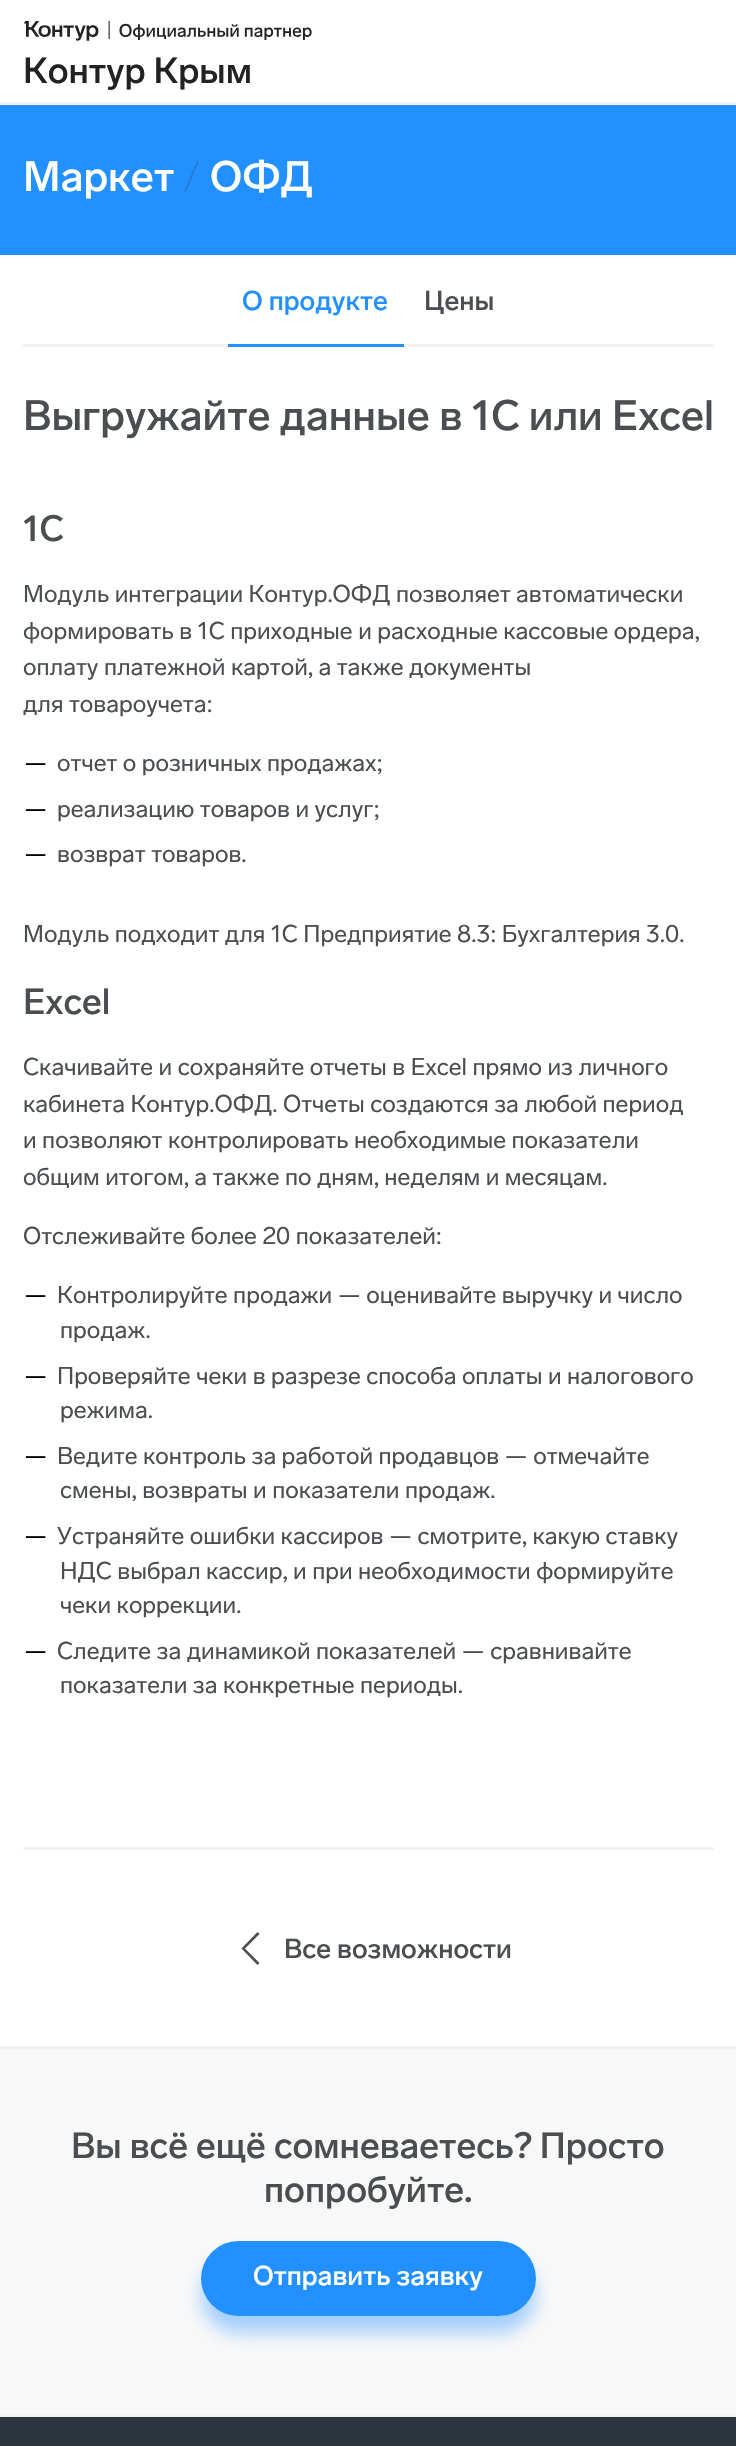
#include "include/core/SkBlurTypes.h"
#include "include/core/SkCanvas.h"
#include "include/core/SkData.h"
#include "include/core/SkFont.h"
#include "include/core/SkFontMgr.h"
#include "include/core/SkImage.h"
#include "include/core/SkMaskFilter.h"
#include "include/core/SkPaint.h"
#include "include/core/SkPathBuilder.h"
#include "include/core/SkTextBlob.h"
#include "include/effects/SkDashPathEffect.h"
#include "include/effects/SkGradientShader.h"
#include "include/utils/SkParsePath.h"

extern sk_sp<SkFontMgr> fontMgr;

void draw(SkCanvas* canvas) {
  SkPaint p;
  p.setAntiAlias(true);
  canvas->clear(SK_ColorWHITE);
  p.setColor(SkColorSetRGB(242, 242, 242));
  canvas->drawRect(SkRect::MakeLTRB(0, 102, 736, 105), p);
  canvas->drawImageRect(SkImages::DeferredFromEncodedData(SkData::MakeFromFileName("images/1.png")), SkRect::MakeLTRB(24, 21, 312, 41), SkSamplingOptions());
  p.setColor(SkColorSetRGB(34, 145, 255));
  canvas->drawRect(SkRect::MakeLTRB(0, 105, 736, 255), p);
  p.setColor(SkColorSetRGB(243, 243, 243));
  canvas->drawRect(SkRect::MakeLTRB(23, 344, 714, 347), p);
  p.setColor(SkColorSetRGB(34, 145, 255));
  canvas->drawRect(SkRect::MakeLTRB(228, 344, 404, 347), p);
  p.setColor(SkColorSetRGB(243, 243, 243));
  canvas->drawRect(SkRect::MakeLTRB(23, 1847, 714, 1850), p);
  p.setColor(SkColorSetRGB(75, 78, 81));
  canvas->drawPath(SkPathBuilder().moveTo(245, 1948.5f).lineTo(259.5f, 1963).lineTo(257.5f, 1965).lineTo(241.5f, 1948.5f).lineTo(257.5f, 1932).lineTo(259.5f, 1934).close().detach(), p);
  p.setColor(SkColorSetRGB(242, 242, 242));
  canvas->drawPath(SkPathBuilder().moveTo(0, 2046).lineTo(0, 2049).lineTo(736, 2049).lineTo(736, 2411).lineTo(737, 2411).lineTo(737, 2046).close().detach(), p);
  canvas->drawPath(SkPathBuilder().moveTo(0, 2414).lineTo(0, 2417).lineTo(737, 2417).lineTo(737, 2052).lineTo(736, 2052).lineTo(736, 2414).close().detach(), p);
  p.setColor(SkColorSetRGB(248, 248, 248));
  canvas->drawRect(SkRect::MakeLTRB(0, 2049, 736, 2414), p);
  p.setColor(SkColorSetARGB(102, 34, 145, 255));
  p.setMaskFilter(SkMaskFilter::MakeBlur(kNormal_SkBlurStyle, 9));
  canvas->drawRoundRect(SkRect::MakeLTRB(201, 2258, 536, 2333), 37.5f, 37.5f, p);
  p.setMaskFilter(nullptr);
  p.setColor(SkColorSetRGB(34, 145, 255));
  canvas->drawRoundRect(SkRect::MakeLTRB(201, 2241, 536, 2316), 37.5f, 37.5f, p);
  p.setColor(SkColorSetRGB(44, 53, 61));
  canvas->drawRect(SkRect::MakeLTRB(0, 2417, 736, 2446), p);
  SkFont font1(fontMgr->matchFamilyStyle("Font", SkFontStyle(500, SkFontStyle::kNormal_Width, SkFontStyle::kUpright_Slant)), 36);
  font1.setSubpixel(true);
  p.setColor(SkColorSetRGB(34, 34, 34));
  canvas->drawString("Контур Крым", 23, 83, font1, p);
  SkFont font2(fontMgr->matchFamilyStyle("Font", SkFontStyle(500, SkFontStyle::kNormal_Width, SkFontStyle::kUpright_Slant)), 42);
  font2.setSubpixel(true);
  p.setColor(SK_ColorWHITE);
  canvas->drawString("Маркет", 23, 191, font2, p);
  SkFont font3(fontMgr->matchFamilyStyle("Font", SkFontStyle(100, SkFontStyle::kNormal_Width, SkFontStyle::kUpright_Slant)), 42);
  font3.setSubpixel(true);
  p.setColor(SkColorSetRGB(40, 122, 203));
  canvas->drawString("/", 183, 191, font3, p);
  p.setColor(SK_ColorWHITE);
  canvas->drawString("ОФД", 210, 191, font2, p);
  SkFont font4(fontMgr->matchFamilyStyle("Font", SkFontStyle(500, SkFontStyle::kNormal_Width, SkFontStyle::kUpright_Slant)), 27);
  font4.setSubpixel(true);
  p.setColor(SkColorSetRGB(34, 145, 255));
  canvas->drawString("О продукте", 242, 310, font4, p);
  p.setColor(SkColorSetRGB(75, 78, 81));
  canvas->drawString("Цены", 424, 310, font4, p);
  canvas->drawString("Выгружайте данные в 1С или Excel", 23, 430, font2, p);
  canvas->drawString("1С", 23, 541, font1, p);
  SkFont font5(fontMgr->matchFamilyStyle("Font", SkFontStyle::Normal()), 24);
  font5.setSubpixel(true);
  canvas->drawString("Модуль интеграции Контур.ОФД позволяет автоматически", 23, 602, font5, p);
  canvas->drawString("формировать в 1С приходные и расходные кассовые ордера,", 23, 639, font5, p);
  canvas->drawString("оплату платежной картой, а также документы", 23, 675, font5, p);
  canvas->drawString("для товароучета:", 23, 712, font5, p);
  p.setColor(SK_ColorBLACK);
  canvas->drawString("—", 24, 771, font5, p);
  p.setColor(SkColorSetRGB(75, 78, 81));
  canvas->drawString("отчет о розничных продажах;", 57, 771, font5, p);
  p.setColor(SK_ColorBLACK);
  canvas->drawString("—", 24, 817, font5, p);
  p.setColor(SkColorSetRGB(75, 78, 81));
  canvas->drawString("реализацию товаров и услуг;", 57, 817, font5, p);
  p.setColor(SK_ColorBLACK);
  canvas->drawString("—", 24, 862, font5, p);
  p.setColor(SkColorSetRGB(75, 78, 81));
  canvas->drawString("возврат товаров.", 57, 862, font5, p);
  canvas->drawString("Модуль подходит для 1С Предприятие 8.3: Бухгалтерия 3.0.", 23, 942, font5, p);
  canvas->drawString("Excel", 23, 1014, font1, p);
  canvas->drawString("Скачивайте и сохраняйте отчеты в Excel прямо из личного", 23, 1075, font5, p);
  canvas->drawString("кабинета Контур.ОФД. Отчеты создаются за любой период", 23, 1112, font5, p);
  canvas->drawString("и позволяют контролировать необходимые показатели", 23, 1148, font5, p);
  canvas->drawString("общим итогом, а также по дням, неделям и месяцам.", 23, 1185, font5, p);
  canvas->drawString("Отслеживайте более 20 показателей:", 23, 1244, font5, p);
  p.setColor(SK_ColorBLACK);
  canvas->drawString("—", 24, 1303, font5, p);
  p.setColor(SkColorSetRGB(75, 78, 81));
  canvas->drawString("Контролируйте продажи — оценивайте выручку и число", 57, 1303, font5, p);
  canvas->drawString("продаж.", 60, 1338, font5, p);
  p.setColor(SK_ColorBLACK);
  canvas->drawString("—", 24, 1384, font5, p);
  p.setColor(SkColorSetRGB(75, 78, 81));
  canvas->drawString("Проверяйте чеки в разрезе способа оплаты и налогового", 57, 1384, font5, p);
  canvas->drawString("режима.", 60, 1418, font5, p);
  p.setColor(SK_ColorBLACK);
  canvas->drawString("—", 24, 1464, font5, p);
  p.setColor(SkColorSetRGB(75, 78, 81));
  canvas->drawString("Ведите контроль за работой продавцов — отмечайте", 57, 1464, font5, p);
  canvas->drawString("смены, возвраты и показатели продаж.", 60, 1498, font5, p);
  p.setColor(SK_ColorBLACK);
  canvas->drawString("—", 24, 1544, font5, p);
  p.setColor(SkColorSetRGB(75, 78, 81));
  canvas->drawString("Устраняйте ошибки кассиров — смотрите, какую ставку", 57, 1544, font5, p);
  canvas->drawString("НДС выбрал кассир, и при необходимости формируйте", 60, 1579, font5, p);
  canvas->drawString("чеки коррекции.", 60, 1613, font5, p);
  p.setColor(SK_ColorBLACK);
  canvas->drawString("—", 24, 1659, font5, p);
  p.setColor(SkColorSetRGB(75, 78, 81));
  canvas->drawString("Следите за динамикой показателей — сравнивайте", 57, 1659, font5, p);
  canvas->drawString("показатели за конкретные периоды.", 60, 1693, font5, p);
  canvas->drawString("Все возможности", 284, 1958, font4, p);
  canvas->drawString("Вы всё ещё сомневаетесь? Просто", 71, 2158, font1, p);
  canvas->drawString("попробуйте.", 264, 2202, font1, p);
  p.setColor(SK_ColorWHITE);
  canvas->drawString("Отправить заявку", 253, 2285, font4, p);
}
